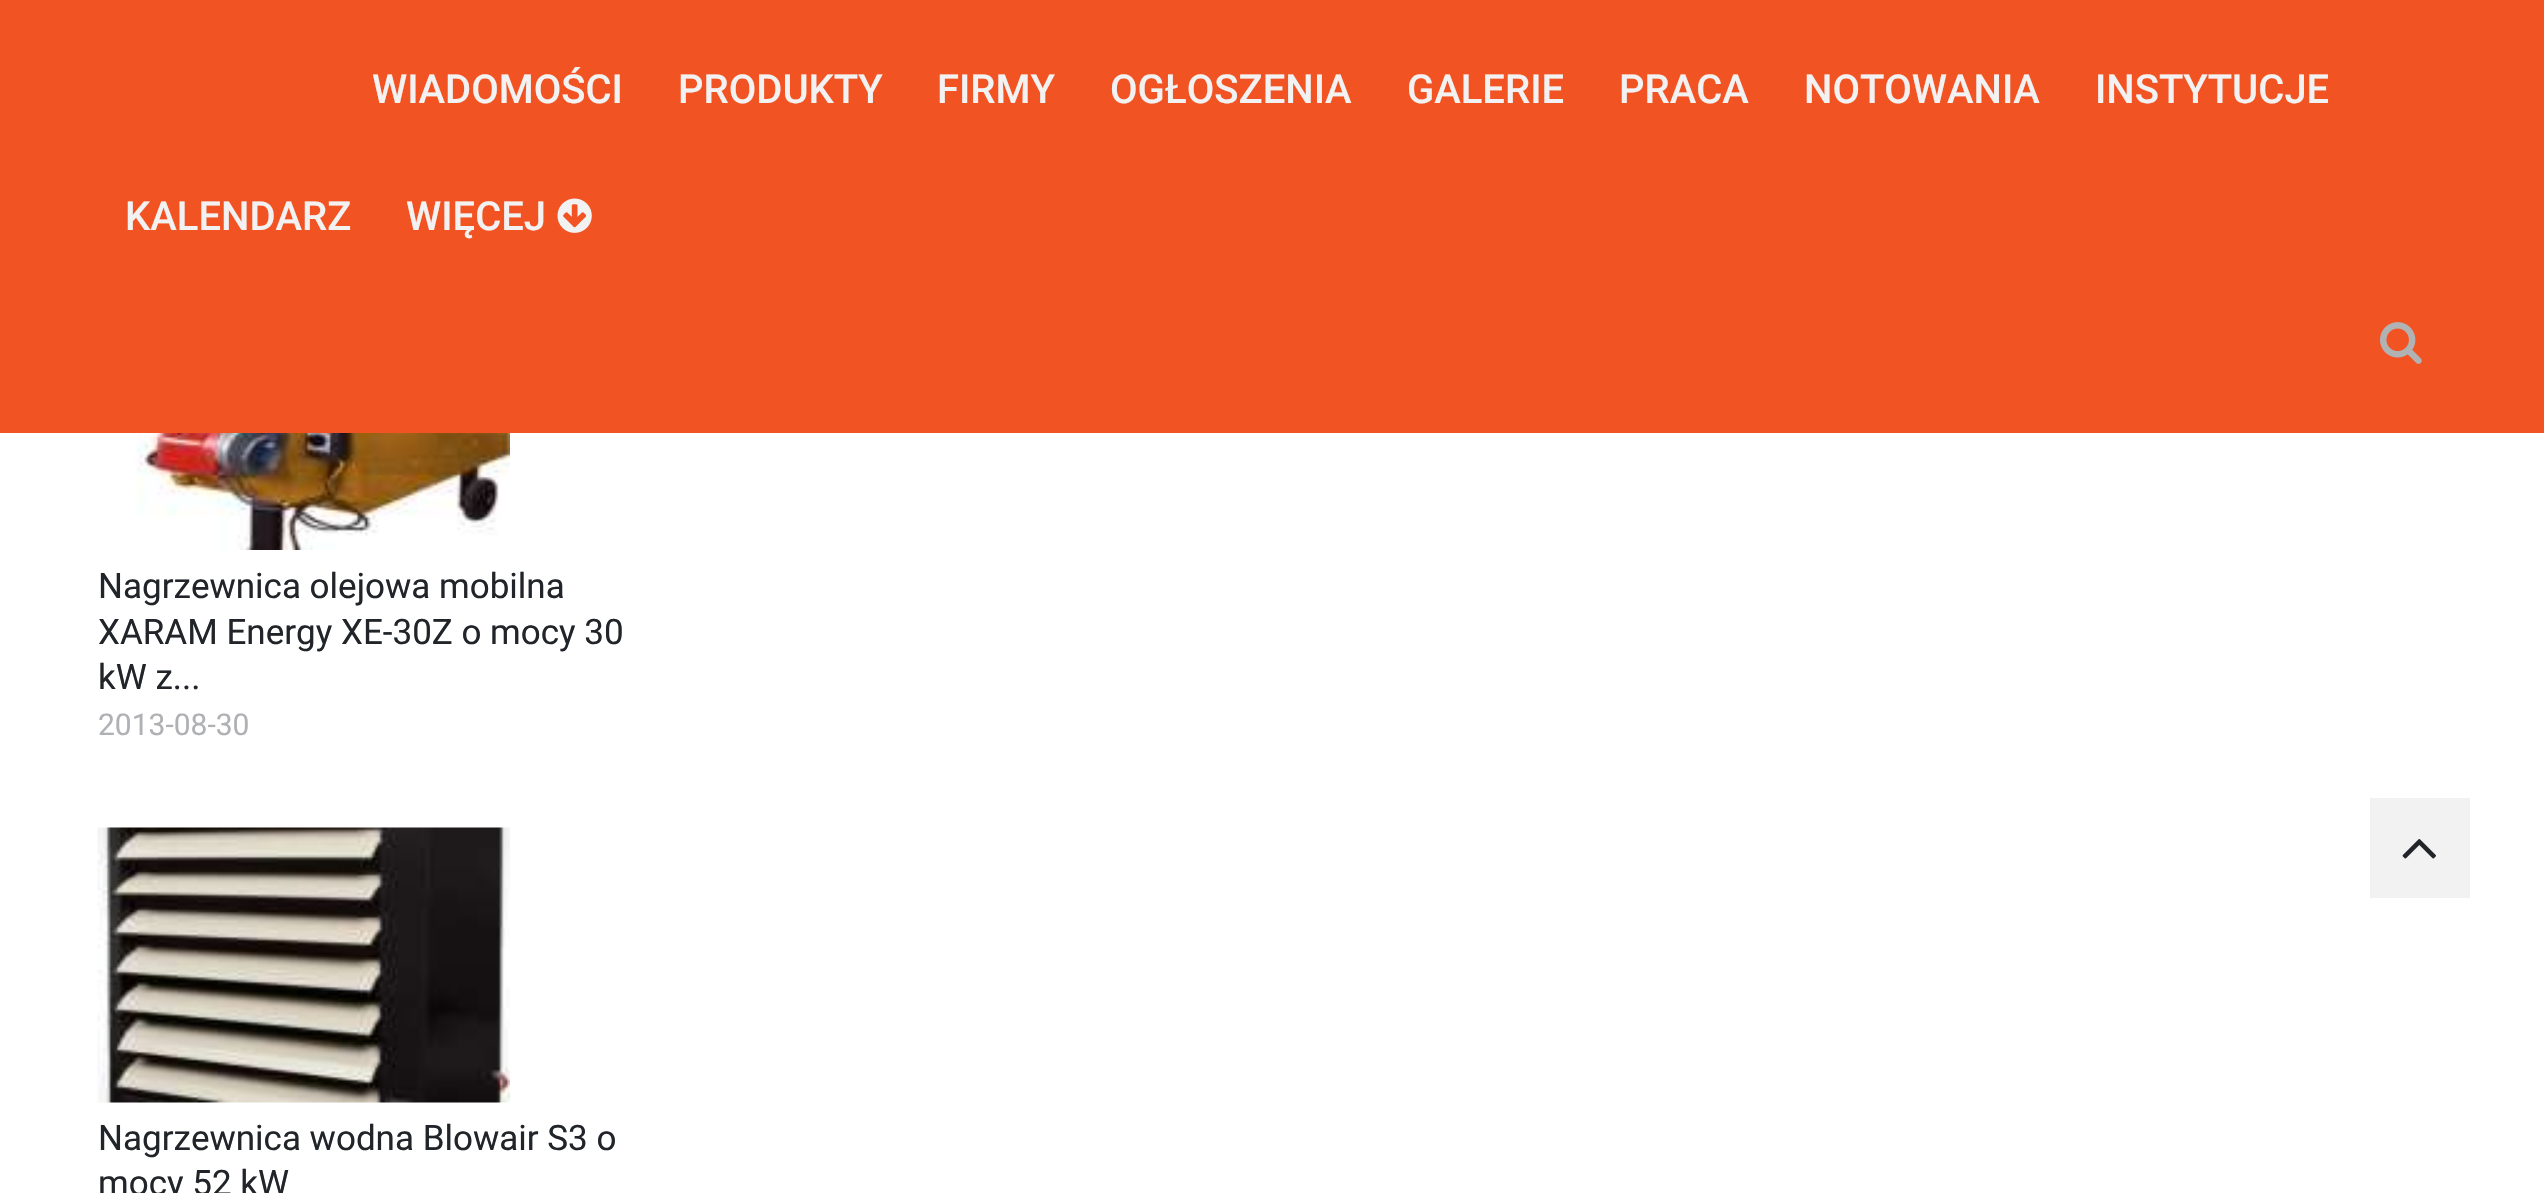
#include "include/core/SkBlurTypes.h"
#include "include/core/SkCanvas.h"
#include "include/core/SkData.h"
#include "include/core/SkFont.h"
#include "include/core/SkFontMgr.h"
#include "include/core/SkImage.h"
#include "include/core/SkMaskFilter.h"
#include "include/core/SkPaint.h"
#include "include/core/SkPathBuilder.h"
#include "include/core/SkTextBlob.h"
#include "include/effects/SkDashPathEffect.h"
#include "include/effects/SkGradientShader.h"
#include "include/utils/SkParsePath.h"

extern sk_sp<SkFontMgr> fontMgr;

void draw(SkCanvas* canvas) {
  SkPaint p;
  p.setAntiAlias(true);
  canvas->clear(SK_ColorWHITE);
  p.setColor(SkColorSetRGB(242, 83, 35));
  canvas->drawRect(SkRect::MakeLTRB(0, 0, 2544, 433), p);
  canvas->drawImageRect(SkImages::DeferredFromEncodedData(SkData::MakeFromFileName("images/1.png")), SkRect::MakeLTRB(557, 198, 592, 233), SkSamplingOptions());
  canvas->drawImageRect(SkImages::DeferredFromEncodedData(SkData::MakeFromFileName("images/2.png")), SkRect::MakeLTRB(2380, 322, 2422, 364), SkSamplingOptions());
  canvas->drawImageRect(SkImages::DeferredFromEncodedData(SkData::MakeFromFileName("images/3.png")), SkRect::MakeLTRB(97, 433, 510, 550), SkSamplingOptions());
  canvas->drawImageRect(SkImages::DeferredFromEncodedData(SkData::MakeFromFileName("images/4.png")), SkRect::MakeLTRB(97, 827, 510, 1103), SkSamplingOptions());
  p.setColor(SkColorSetRGB(242, 242, 242));
  canvas->drawRect(SkRect::MakeLTRB(2370, 798, 2470, 898), p);
  canvas->drawImageRect(SkImages::DeferredFromEncodedData(SkData::MakeFromFileName("images/5.png")), SkRect::MakeLTRB(2402, 839, 2436, 859), SkSamplingOptions());
  SkFont font1(fontMgr->matchFamilyStyle("Roboto", SkFontStyle(500, SkFontStyle::kNormal_Width, SkFontStyle::kUpright_Slant)), 40);
  font1.setSubpixel(true);
  canvas->drawString("WIADOMOŚCI", 372, 103, font1, p);
  canvas->drawString("PRODUKTY", 678, 103, font1, p);
  canvas->drawString("FIRMY", 937, 103, font1, p);
  canvas->drawString("OGŁOSZENIA", 1110, 103, font1, p);
  canvas->drawString("GALERIE", 1407, 103, font1, p);
  canvas->drawString("PRACA", 1619, 103, font1, p);
  canvas->drawString("NOTOWANIA", 1804, 103, font1, p);
  canvas->drawString("INSTYTUCJE", 2095, 103, font1, p);
  canvas->drawString("KALENDARZ", 125, 230, font1, p);
  canvas->drawString("WIĘCEJ", 406, 230, font1, p);
  SkFont font2(fontMgr->matchFamilyStyle("Roboto", SkFontStyle::Normal()), 35);
  font2.setSubpixel(true);
  p.setColor(SkColorSetRGB(33, 36, 40));
  canvas->drawString("Nagrzewnica olejowa mobilna", 98, 598, font2, p);
  canvas->drawString("XARAM Energy XE-30Z o mocy 30", 98, 644, font2, p);
  canvas->drawString("kW z...", 98, 689, font2, p);
  SkFont font3(fontMgr->matchFamilyStyle("Roboto", SkFontStyle::Normal()), 30);
  font3.setSubpixel(true);
  p.setColor(SkColorSetRGB(176, 177, 180));
  canvas->drawString("2013-08-30", 98, 735, font3, p);
  p.setColor(SkColorSetRGB(33, 36, 40));
  canvas->drawString("Nagrzewnica wodna Blowair S3 o", 98, 1150, font2, p);
  canvas->drawString("mocy 52 kW", 98, 1195, font2, p);
}
